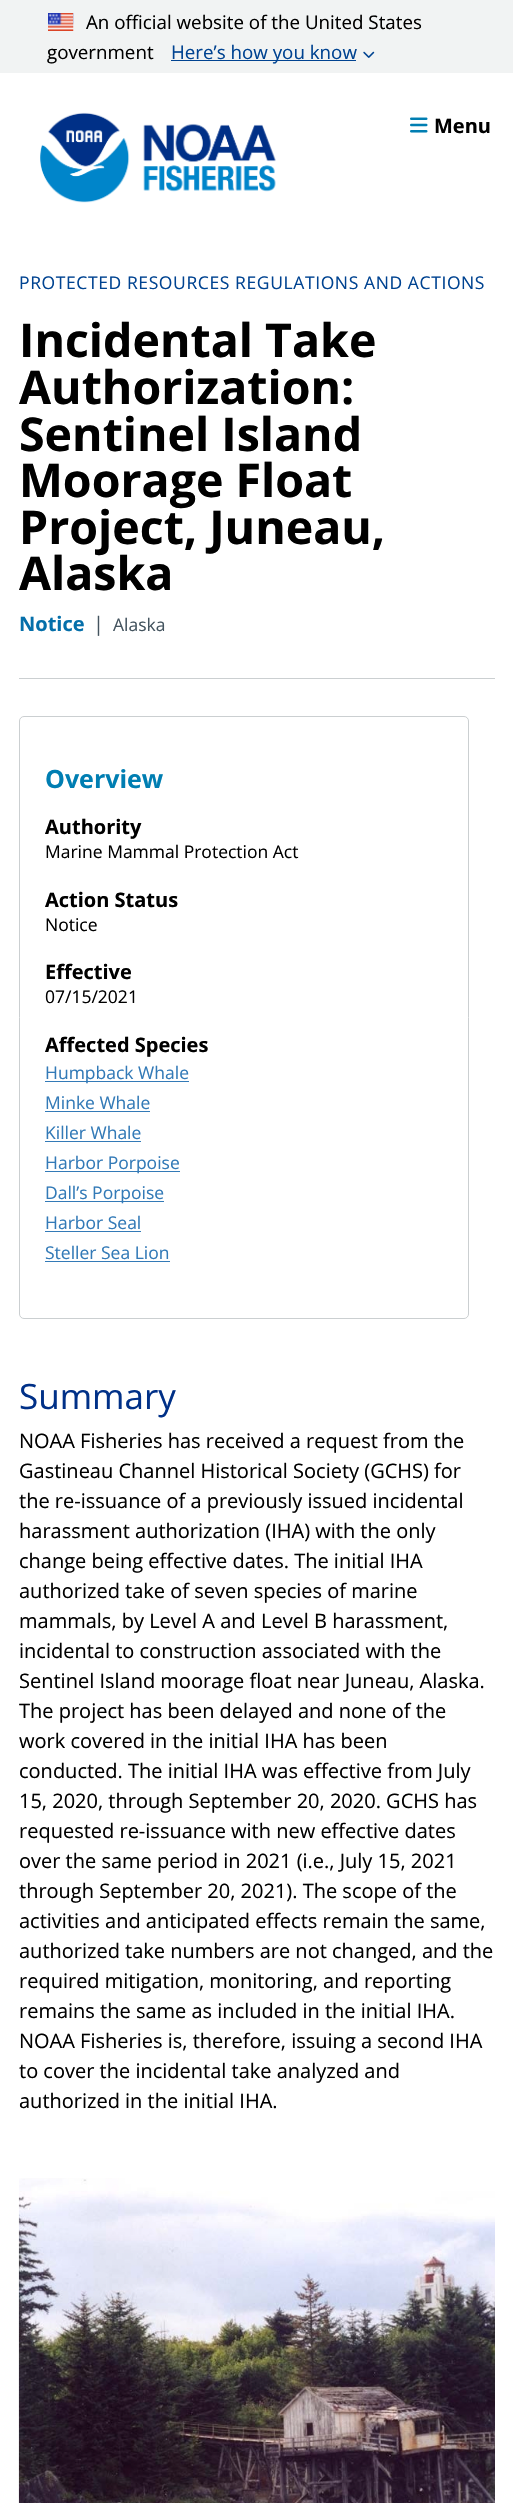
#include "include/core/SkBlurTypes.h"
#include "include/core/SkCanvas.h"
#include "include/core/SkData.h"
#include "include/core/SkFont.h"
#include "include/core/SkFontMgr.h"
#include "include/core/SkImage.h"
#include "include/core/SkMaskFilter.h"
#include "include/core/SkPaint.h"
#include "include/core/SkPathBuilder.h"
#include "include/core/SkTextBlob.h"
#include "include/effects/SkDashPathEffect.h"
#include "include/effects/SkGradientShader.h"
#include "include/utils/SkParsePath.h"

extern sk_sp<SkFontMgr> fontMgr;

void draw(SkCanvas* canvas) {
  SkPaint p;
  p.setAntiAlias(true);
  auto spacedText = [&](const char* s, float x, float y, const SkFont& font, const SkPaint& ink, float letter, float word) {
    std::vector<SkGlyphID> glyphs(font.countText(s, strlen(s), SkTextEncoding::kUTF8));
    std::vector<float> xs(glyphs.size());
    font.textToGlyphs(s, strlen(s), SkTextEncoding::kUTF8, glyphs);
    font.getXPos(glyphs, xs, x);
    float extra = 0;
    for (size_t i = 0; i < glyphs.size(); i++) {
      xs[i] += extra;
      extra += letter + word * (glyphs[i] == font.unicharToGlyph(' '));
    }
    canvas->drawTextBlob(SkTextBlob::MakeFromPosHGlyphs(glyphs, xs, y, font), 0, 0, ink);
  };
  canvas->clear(SK_ColorWHITE);
  p.setColor(SkColorSetRGB(241, 243, 243));
  canvas->drawRect(SkRect::MakeLTRB(0, 0, 513, 73), p);
  canvas->drawImageRect(SkImages::DeferredFromEncodedData(SkData::MakeFromFileName("images/1.png")), SkRect::MakeLTRB(48, 13, 74, 31), SkSamplingOptions());
  p.setColor(SkColorSetRGB(0, 67, 145));
  canvas->drawRect(SkRect::MakeLTRB(171, 60, 356, 61), p);
  canvas->drawImageRect(SkImages::DeferredFromEncodedData(SkData::MakeFromFileName("images/2.png")), SkRect::MakeLTRB(363, 51, 375, 58), SkSamplingOptions());
  canvas->drawImageRect(SkImages::DeferredFromEncodedData(SkData::MakeFromFileName("images/3.png")), SkRect::MakeLTRB(40, 112, 276, 203), SkSamplingOptions());
  canvas->drawImageRect(SkImages::DeferredFromEncodedData(SkData::MakeFromFileName("images/4.png")), SkRect::MakeLTRB(410, 117, 428, 133), SkSamplingOptions());
  p.setColor(SkColorSetRGB(203, 207, 209));
  canvas->drawRect(SkRect::MakeLTRB(19, 678, 495, 679), p);
  p.setStyle(SkPaint::kStroke_Style);
  p.setStrokeWidth(1);
  canvas->drawRoundRect(SkRect::MakeLTRB(19.5f, 716.5f, 468.5f, 1318.5f), 4.5f, 4.5f, p);
  p.setStyle(SkPaint::kFill_Style);
  p.setColor(SkColorSetRGB(51, 122, 183));
  canvas->drawRect(SkRect::MakeLTRB(45, 1081, 189, 1082), p);
  canvas->drawRect(SkRect::MakeLTRB(45, 1111, 150, 1112), p);
  canvas->drawRect(SkRect::MakeLTRB(45, 1141, 141, 1142), p);
  canvas->drawRect(SkRect::MakeLTRB(45, 1171, 180, 1172), p);
  canvas->drawRect(SkRect::MakeLTRB(45, 1201, 164, 1202), p);
  canvas->drawRect(SkRect::MakeLTRB(45, 1231, 141, 1232), p);
  canvas->drawRect(SkRect::MakeLTRB(45, 1261, 170, 1262), p);
  canvas->drawImageRect(SkImages::DeferredFromEncodedData(SkData::MakeFromFileName("images/5.png")), SkRect::MakeLTRB(18, 2178, 495, 2503), SkSamplingOptions());
  SkFont font1(fontMgr->matchFamilyStyle("Open Sans", SkFontStyle::Normal()), 18.75f);
  font1.setSubpixel(true);
  p.setColor(SK_ColorBLACK);
  canvas->drawString("An official website of the United States", 86, 29, font1, p);
  canvas->drawString("government", 47, 59, font1, p);
  p.setColor(SkColorSetRGB(0, 67, 145));
  canvas->drawString("Here’s how you know", 171, 59, font1, p);
  SkFont font2(fontMgr->matchFamilyStyle("Open Sans", SkFontStyle::Bold()), 20);
  font2.setSubpixel(true);
  p.setColor(SK_ColorBLACK);
  canvas->drawString("Menu", 434, 133, font2, p);
  SkFont font3(fontMgr->matchFamilyStyle("Open Sans", SkFontStyle::Normal()), 17.5f);
  font3.setSubpixel(true);
  p.setColor(SkColorSetRGB(0, 67, 145));
  spacedText("PROTECTED RESOURCES REGULATIONS AND ACTIONS", 19, 289, font3, p, 0.6f, 0);
  SkFont font4(fontMgr->matchFamilyStyle("Open Sans", SkFontStyle::Bold()), 46.5f);
  font4.setSubpixel(true);
  p.setColor(SK_ColorBLACK);
  canvas->drawString("Incidental Take", 19, 357, font4, p);
  canvas->drawString("Authorization:", 19, 404, font4, p);
  canvas->drawString("Sentinel Island", 19, 451, font4, p);
  canvas->drawString("Moorage Float", 19, 497, font4, p);
  canvas->drawString("Project, Juneau,", 19, 544, font4, p);
  canvas->drawString("Alaska", 19, 590, font4, p);
  p.setColor(SkColorSetRGB(5, 111, 170));
  canvas->drawString("Notice", 19, 631, font2, p);
  SkFont font5(fontMgr->matchFamilyStyle("Open Sans", SkFontStyle::Normal()), 20);
  font5.setSubpixel(true);
  p.setColor(SkColorSetRGB(68, 84, 95));
  canvas->drawString("|", 93, 631, font5, p);
  canvas->drawString("Alaska", 113, 631, font3, p);
  SkFont font6(fontMgr->matchFamilyStyle("Open Sans", SkFontStyle::Bold()), 25);
  font6.setSubpixel(true);
  p.setColor(SkColorSetRGB(0, 126, 178));
  canvas->drawString("Overview", 45, 788, font6, p);
  p.setColor(SK_ColorBLACK);
  canvas->drawString("Authority", 45, 834, font2, p);
  canvas->drawString("Marine Mammal Protection Act", 45, 858, font3, p);
  canvas->drawString("Action Status", 45, 907, font2, p);
  canvas->drawString("Notice", 45, 931, font3, p);
  canvas->drawString("Effective", 45, 979, font2, p);
  canvas->drawString("07/15/2021", 45, 1003, font3, p);
  canvas->drawString("Affected Species", 45, 1052, font2, p);
  p.setColor(SkColorSetRGB(51, 122, 183));
  canvas->drawString("Humpback Whale", 45, 1079, font3, p);
  canvas->drawString("Minke Whale", 45, 1109, font3, p);
  canvas->drawString("Killer Whale", 45, 1139, font3, p);
  canvas->drawString("Harbor Porpoise", 45, 1169, font3, p);
  canvas->drawString("Dall’s Porpoise", 45, 1199, font3, p);
  canvas->drawString("Harbor Seal", 45, 1229, font3, p);
  canvas->drawString("Steller Sea Lion", 45, 1259, font3, p);
  SkFont font7(fontMgr->matchFamilyStyle("Open Sans", SkFontStyle::Normal()), 35);
  font7.setSubpixel(true);
  p.setColor(SkColorSetRGB(0, 48, 135));
  canvas->drawString("Summary", 19, 1409, font7, p);
  p.setColor(SK_ColorBLACK);
  canvas->drawString("NOAA Fisheries has received a request from the", 19, 1448, font5, p);
  canvas->drawString("Gastineau Channel Historical Society (GCHS) for", 19, 1478, font5, p);
  canvas->drawString("the re-issuance of a previously issued incidental", 19, 1508, font5, p);
  canvas->drawString("harassment authorization (IHA) with the only", 19, 1538, font5, p);
  canvas->drawString("change being effective dates. The initial IHA", 19, 1568, font5, p);
  canvas->drawString("authorized take of seven species of marine", 19, 1598, font5, p);
  canvas->drawString("mammals, by Level A and Level B harassment,", 19, 1628, font5, p);
  canvas->drawString("incidental to construction associated with the", 19, 1658, font5, p);
  canvas->drawString("Sentinel Island moorage float near Juneau, Alaska.", 19, 1688, font5, p);
  canvas->drawString("The project has been delayed and none of the", 19, 1718, font5, p);
  canvas->drawString("work covered in the initial IHA has been", 19, 1748, font5, p);
  canvas->drawString("conducted. The initial IHA was effective from July", 19, 1778, font5, p);
  canvas->drawString("15, 2020, through September 20, 2020. GCHS has", 19, 1808, font5, p);
  canvas->drawString("requested re-issuance with new effective dates", 19, 1838, font5, p);
  canvas->drawString("over the same period in 2021 (i.e., July 15, 2021", 19, 1868, font5, p);
  canvas->drawString("through September 20, 2021). The scope of the", 19, 1898, font5, p);
  canvas->drawString("activities and anticipated effects remain the same,", 19, 1928, font5, p);
  canvas->drawString("authorized take numbers are not changed, and the", 19, 1958, font5, p);
  canvas->drawString("required mitigation, monitoring, and reporting", 19, 1988, font5, p);
  canvas->drawString("remains the same as included in the initial IHA.", 19, 2018, font5, p);
  canvas->drawString("NOAA Fisheries is, therefore, issuing a second IHA", 19, 2048, font5, p);
  canvas->drawString("to cover the incidental take analyzed and", 19, 2078, font5, p);
  canvas->drawString("authorized in the initial IHA.", 19, 2108, font5, p);
}
